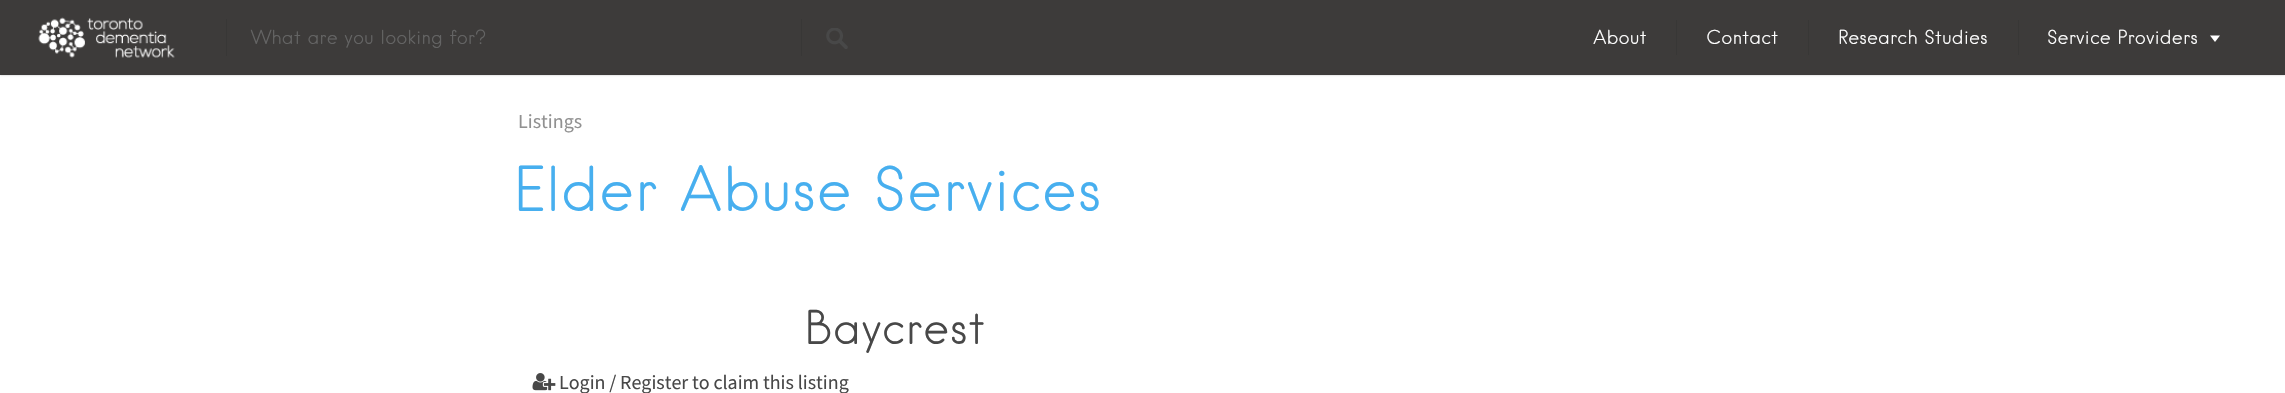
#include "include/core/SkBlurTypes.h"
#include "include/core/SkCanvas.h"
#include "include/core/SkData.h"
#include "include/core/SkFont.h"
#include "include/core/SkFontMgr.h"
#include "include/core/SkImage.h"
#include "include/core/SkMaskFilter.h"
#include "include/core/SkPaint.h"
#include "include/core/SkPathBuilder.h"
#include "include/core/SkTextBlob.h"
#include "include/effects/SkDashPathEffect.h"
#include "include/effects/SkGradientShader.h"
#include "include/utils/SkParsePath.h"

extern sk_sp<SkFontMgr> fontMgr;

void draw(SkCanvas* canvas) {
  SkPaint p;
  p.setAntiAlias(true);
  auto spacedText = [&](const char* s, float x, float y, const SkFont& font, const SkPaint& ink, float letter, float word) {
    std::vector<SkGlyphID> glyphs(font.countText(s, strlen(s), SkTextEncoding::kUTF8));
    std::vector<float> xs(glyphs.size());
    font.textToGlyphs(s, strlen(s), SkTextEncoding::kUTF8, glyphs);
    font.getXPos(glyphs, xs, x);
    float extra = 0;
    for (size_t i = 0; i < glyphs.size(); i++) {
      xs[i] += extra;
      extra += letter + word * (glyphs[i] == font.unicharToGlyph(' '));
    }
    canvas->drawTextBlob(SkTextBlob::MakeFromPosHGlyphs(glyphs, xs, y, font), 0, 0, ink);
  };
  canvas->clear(SK_ColorWHITE);
  p.setColor(SkColorSetARGB(64, 0, 0, 0));
  p.setMaskFilter(SkMaskFilter::MakeBlur(kNormal_SkBlurStyle, 1));
  canvas->drawRect(SkRect::MakeLTRB(0, 0, 2285, 75), p);
  p.setMaskFilter(nullptr);
  p.setColor(SkColorSetRGB(61, 59, 58));
  canvas->drawRect(SkRect::MakeLTRB(0, 0, 2285, 75), p);
  canvas->drawImageRect(SkImages::DeferredFromEncodedData(SkData::MakeFromFileName("images/1.png")), SkRect::MakeLTRB(38, 17, 175, 58), SkSamplingOptions());
  p.setColor(SkColorSetRGB(56, 55, 54));
  canvas->drawRect(SkRect::MakeLTRB(226, 19, 227, 56), p);
  canvas->drawRect(SkRect::MakeLTRB(801, 19, 802, 56), p);
  canvas->drawImageRect(SkImages::DeferredFromEncodedData(SkData::MakeFromFileName("images/2.png")), SkRect::MakeLTRB(826, 28, 848, 49), SkSamplingOptions());
  canvas->drawRect(SkRect::MakeLTRB(1676, 20, 1677, 55), p);
  canvas->drawRect(SkRect::MakeLTRB(1808, 20, 1809, 55), p);
  canvas->drawRect(SkRect::MakeLTRB(2018, 20, 2019, 55), p);
  p.setColor(SK_ColorWHITE);
  canvas->drawPath(SkPathBuilder().moveTo(2210, 35.5f).lineTo(2220, 35.5f).lineTo(2215, 42).close().detach(), p);
  canvas->drawImageRect(SkImages::DeferredFromEncodedData(SkData::MakeFromFileName("images/3.png")), SkRect::MakeLTRB(532, 373, 556, 391), SkSamplingOptions());
  SkFont font1(fontMgr->matchFamilyStyle("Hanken", SkFontStyle(300, SkFontStyle::kNormal_Width, SkFontStyle::kUpright_Slant)), 18.75f);
  font1.setSubpixel(true);
  p.setColor(SkColorSetRGB(100, 100, 100));
  canvas->drawString("What are you looking for?", 251, 44, font1, p);
  p.setColor(SK_ColorWHITE);
  canvas->drawString("About", 1593, 44, font1, p);
  canvas->drawString("Contact", 1706, 44, font1, p);
  canvas->drawString("Research Studies", 1838, 44, font1, p);
  canvas->drawString("Service Providers", 2047, 44, font1, p);
  SkFont font2(fontMgr->matchFamilyStyle("Source Sans Pro", SkFontStyle::Normal()), 20);
  font2.setSubpixel(true);
  p.setColor(SkColorSetRGB(145, 145, 145));
  canvas->drawString("Listings", 518, 128, font2, p);
  SkFont font3(fontMgr->matchFamilyStyle("Hanken", SkFontStyle(300, SkFontStyle::kNormal_Width, SkFontStyle::kUpright_Slant)), 60);
  font3.setSubpixel(true);
  p.setColor(SkColorSetRGB(71, 175, 239));
  canvas->drawString("Elder Abuse Services", 513, 211, font3, p);
  SkFont font4(fontMgr->matchFamilyStyle("Hanken", SkFontStyle(300, SkFontStyle::kNormal_Width, SkFontStyle::kUpright_Slant)), 45);
  font4.setSubpixel(true);
  p.setColor(SkColorSetRGB(72, 72, 72));
  canvas->drawString("Baycrest", 804, 344, font4, p);
  spacedText("Login / Register to claim this listing", 559, 389, font2, p, 0, -0.25f);
}
